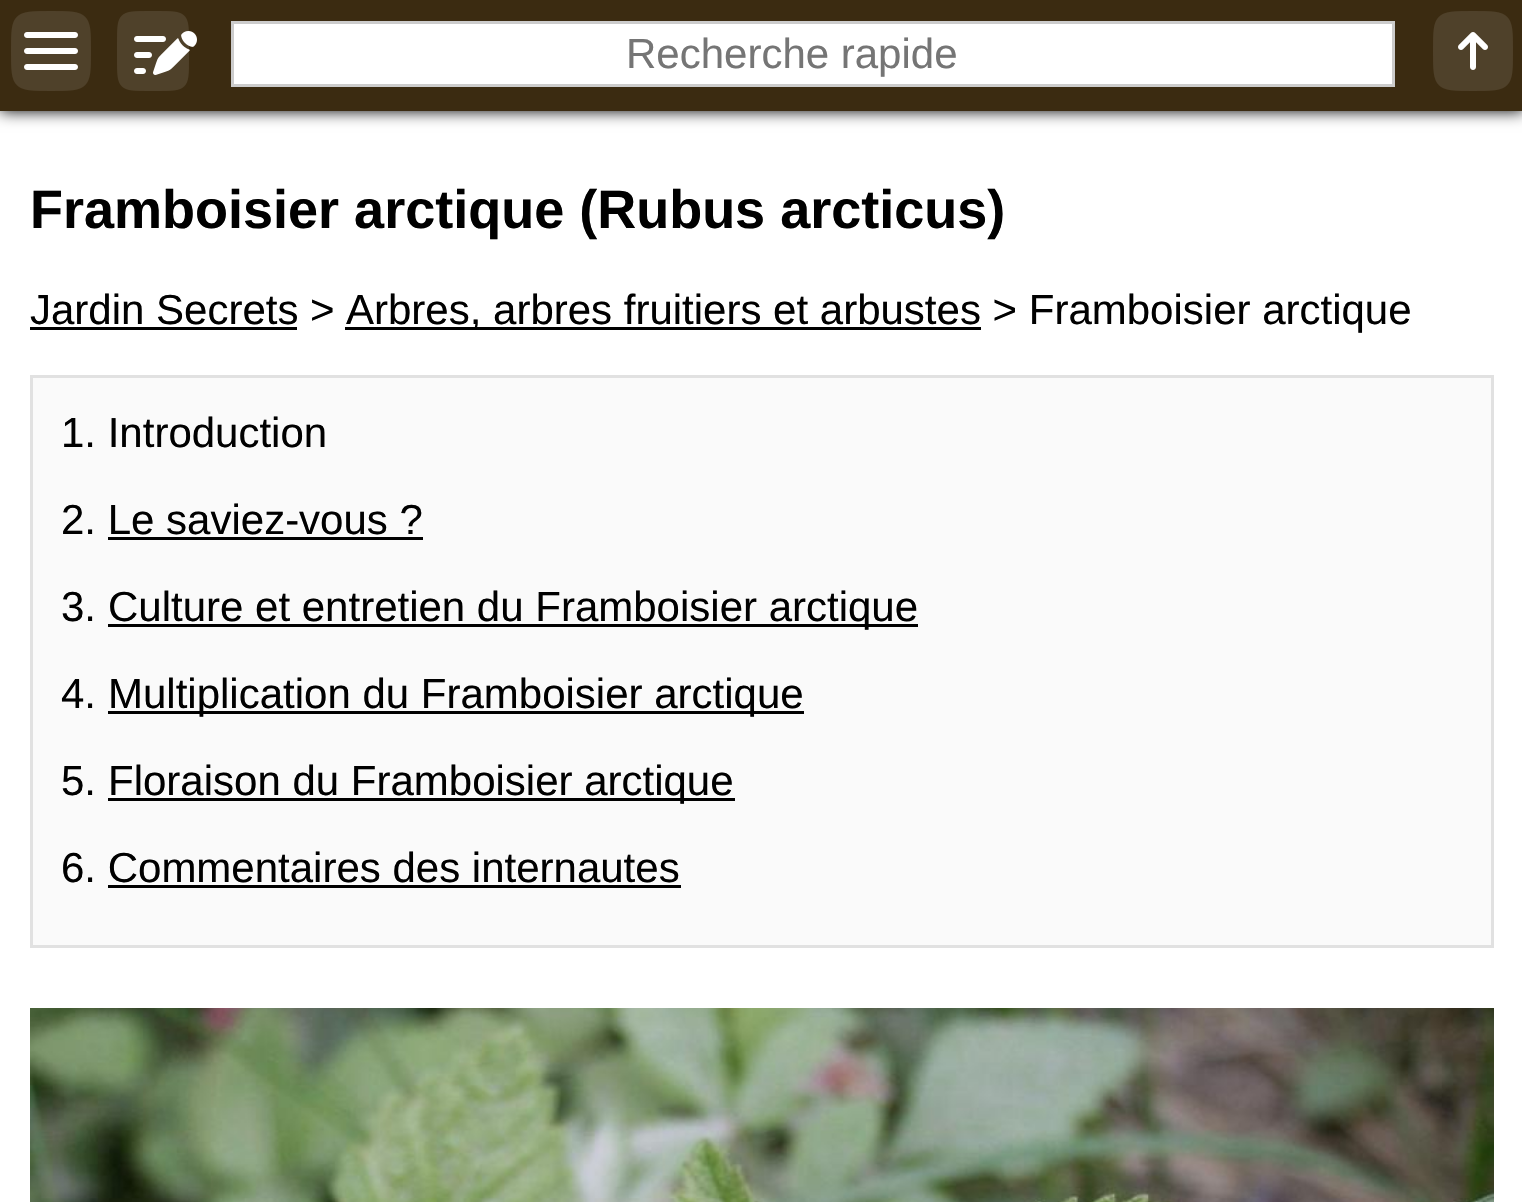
#include "include/core/SkBlurTypes.h"
#include "include/core/SkCanvas.h"
#include "include/core/SkData.h"
#include "include/core/SkFont.h"
#include "include/core/SkFontMgr.h"
#include "include/core/SkImage.h"
#include "include/core/SkMaskFilter.h"
#include "include/core/SkPaint.h"
#include "include/core/SkPathBuilder.h"
#include "include/core/SkTextBlob.h"
#include "include/effects/SkDashPathEffect.h"
#include "include/effects/SkGradientShader.h"
#include "include/utils/SkParsePath.h"

extern sk_sp<SkFontMgr> fontMgr;

void draw(SkCanvas* canvas) {
  SkPaint p;
  p.setAntiAlias(true);
  canvas->clear(SK_ColorWHITE);
  p.setColor(SK_ColorBLACK);
  p.setMaskFilter(SkMaskFilter::MakeBlur(kNormal_SkBlurStyle, 7.5f));
  canvas->drawRect(SkRect::MakeLTRB(0, 0, 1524, 111), p);
  p.setMaskFilter(nullptr);
  p.setColor(SkColorSetRGB(59, 43, 17));
  canvas->drawRect(SkRect::MakeLTRB(0, 0, 1522, 111), p);
  canvas->drawImageRect(SkImages::DeferredFromEncodedData(SkData::MakeFromFileName("images/1.png")), SkRect::MakeLTRB(11, 11, 91, 91), SkSamplingOptions());
  canvas->drawImageRect(SkImages::DeferredFromEncodedData(SkData::MakeFromFileName("images/2.png")), SkRect::MakeLTRB(117, 11, 197, 91), SkSamplingOptions());
  p.setColor(SK_ColorWHITE);
  canvas->drawRect(SkRect::MakeLTRB(232.5f, 22.5f, 1393.5f, 85.5f), p);
  p.setStyle(SkPaint::kStroke_Style);
  p.setStrokeWidth(3);
  p.setColor(SkColorSetRGB(204, 204, 204));
  canvas->drawRect(SkRect::MakeLTRB(232.5f, 22.5f, 1393.5f, 85.5f), p);
  canvas->drawImageRect(SkImages::DeferredFromEncodedData(SkData::MakeFromFileName("images/3.png")), SkRect::MakeLTRB(1433, 11, 1513, 91), SkSamplingOptions());
  p.setStyle(SkPaint::kFill_Style);
  p.setColor(SK_ColorBLACK);
  canvas->drawRect(SkRect::MakeLTRB(30, 327, 297, 330), p);
  canvas->drawRect(SkRect::MakeLTRB(345, 327, 981, 330), p);
  p.setColor(SkColorSetRGB(250, 250, 250));
  canvas->drawRect(SkRect::MakeLTRB(31.5f, 376.5f, 1492.5f, 946.5f), p);
  p.setStyle(SkPaint::kStroke_Style);
  p.setColor(SkColorSetRGB(225, 225, 225));
  canvas->drawRect(SkRect::MakeLTRB(31.5f, 376.5f, 1492.5f, 946.5f), p);
  p.setStyle(SkPaint::kFill_Style);
  p.setColor(SK_ColorBLACK);
  canvas->drawRect(SkRect::MakeLTRB(108, 537, 423, 540), p);
  canvas->drawRect(SkRect::MakeLTRB(108, 624, 918, 627), p);
  canvas->drawRect(SkRect::MakeLTRB(108, 711, 804, 714), p);
  canvas->drawRect(SkRect::MakeLTRB(108, 798, 735, 801), p);
  canvas->drawRect(SkRect::MakeLTRB(108, 885, 681, 888), p);
  canvas->drawImageRect(SkImages::DeferredFromEncodedData(SkData::MakeFromFileName("images/4.png")), SkRect::MakeLTRB(30, 1008, 1494, 1202), SkSamplingOptions());
  SkFont font1(fontMgr->matchFamilyStyle("Liberation Sans", SkFontStyle::Normal()), 42);
  font1.setSubpixel(true);
  p.setColor(SkColorSetRGB(117, 117, 117));
  canvas->drawString("Recherche rapide", 626, 68, font1, p);
  SkFont font2(fontMgr->matchFamilyStyle("Liberation Sans", SkFontStyle::Bold()), 54);
  font2.setSubpixel(true);
  p.setColor(SK_ColorBLACK);
  canvas->drawString("Framboisier arctique (Rubus arcticus)", 30, 228, font2, p);
  canvas->drawString("Jardin Secrets >", 30, 324, font1, p);
  canvas->drawString("Arbres, arbres fruitiers et arbustes > Framboisier arctique", 346, 324, font1, p);
  canvas->drawString("1. Introduction", 61, 447, font1, p);
  canvas->drawString("2. Le saviez-vous ?", 61, 534, font1, p);
  canvas->drawString("3.", 61, 621, font1, p);
  canvas->drawString("Culture et entretien du Framboisier arctique", 108, 621, font1, p);
  canvas->drawString("4.", 61, 708, font1, p);
  canvas->drawString("Multiplication du Framboisier arctique", 108, 708, font1, p);
  canvas->drawString("5.", 61, 795, font1, p);
  canvas->drawString("Floraison du Framboisier arctique", 108, 795, font1, p);
  canvas->drawString("6. Commentaires des internautes", 61, 882, font1, p);
}
